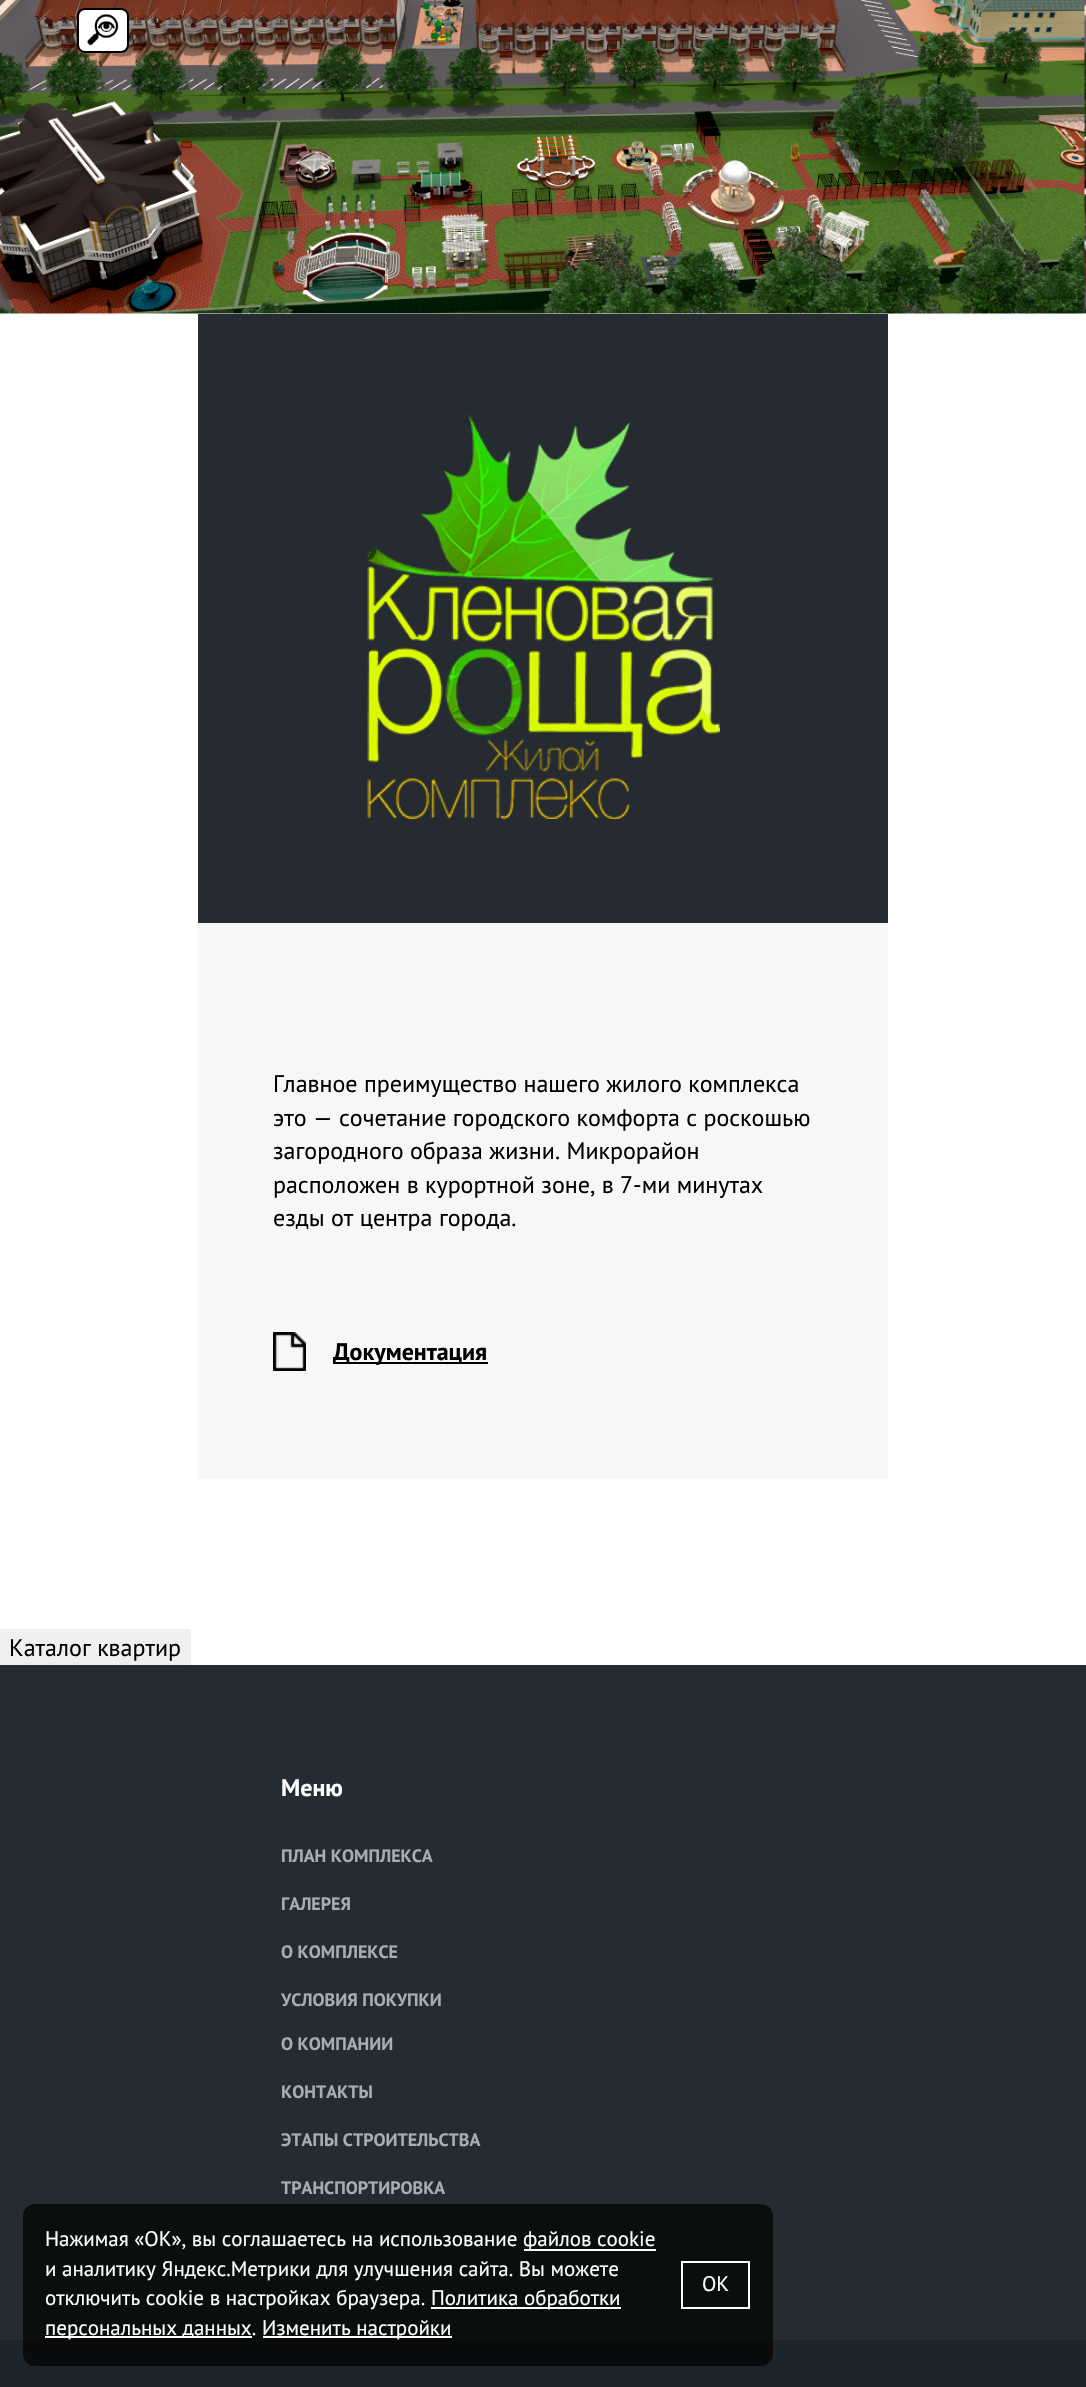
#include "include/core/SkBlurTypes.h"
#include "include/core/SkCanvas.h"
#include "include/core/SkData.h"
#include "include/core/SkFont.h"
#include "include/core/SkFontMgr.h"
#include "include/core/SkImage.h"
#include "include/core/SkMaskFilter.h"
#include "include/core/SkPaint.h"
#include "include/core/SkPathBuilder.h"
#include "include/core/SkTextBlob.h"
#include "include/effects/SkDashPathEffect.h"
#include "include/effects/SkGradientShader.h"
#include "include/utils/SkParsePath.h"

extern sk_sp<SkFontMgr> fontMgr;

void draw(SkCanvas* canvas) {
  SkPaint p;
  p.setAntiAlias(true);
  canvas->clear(SK_ColorWHITE);
  canvas->drawImageRect(SkImages::DeferredFromEncodedData(SkData::MakeFromFileName("images/1.png")), SkRect::MakeLTRB(0, 0, 1086, 314), SkSamplingOptions());
  p.setColor(SK_ColorWHITE);
  canvas->drawRoundRect(SkRect::MakeLTRB(78, 9, 128, 52), 7, 7, p);
  p.setStyle(SkPaint::kStroke_Style);
  p.setStrokeWidth(2);
  p.setColor(SK_ColorBLACK);
  canvas->drawRoundRect(SkRect::MakeLTRB(78, 9, 128, 52), 7, 7, p);
  canvas->drawImageRect(SkImages::DeferredFromEncodedData(SkData::MakeFromFileName("images/2.png")), SkRect::MakeLTRB(87, 14, 119, 46), SkSamplingOptions());
  p.setStyle(SkPaint::kFill_Style);
  p.setColor(SkColorSetRGB(247, 247, 247));
  canvas->drawRect(SkRect::MakeLTRB(198, 923, 888, 1479), p);
  p.setColor(SkColorSetRGB(37, 43, 48));
  canvas->drawRect(SkRect::MakeLTRB(198, 314, 888, 923), p);
  canvas->drawImageRect(SkImages::DeferredFromEncodedData(SkData::MakeFromFileName("images/3.png")), SkRect::MakeLTRB(367, 414, 720, 819), SkSamplingOptions());
  canvas->drawImageRect(SkImages::DeferredFromEncodedData(SkData::MakeFromFileName("images/4.png")), SkRect::MakeLTRB(273, 1332, 306, 1371), SkSamplingOptions());
  p.setColor(SK_ColorBLACK);
  canvas->drawRect(SkRect::MakeLTRB(333, 1362, 488, 1364), p);
  p.setColor(SkColorSetRGB(239, 239, 239));
  canvas->drawRect(SkRect::MakeLTRB(0, 1629, 191, 1665), p);
  p.setColor(SkColorSetRGB(36, 44, 50));
  canvas->drawRect(SkRect::MakeLTRB(0, 1665, 1086, 2340), p);
  p.setColor(SkColorSetRGB(29, 36, 42));
  canvas->drawRect(SkRect::MakeLTRB(0, 2340, 1086, 2387), p);
  p.setColor(SkColorSetARGB(179, 0, 0, 0));
  canvas->drawRoundRect(SkRect::MakeLTRB(23, 2204, 773, 2366), 12, 12, p);
  p.setColor(SK_ColorWHITE);
  canvas->drawRect(SkRect::MakeLTRB(524, 2249, 656, 2251), p);
  canvas->drawRect(SkRect::MakeLTRB(431, 2307, 621, 2309), p);
  canvas->drawRect(SkRect::MakeLTRB(45, 2336, 252, 2338), p);
  canvas->drawRect(SkRect::MakeLTRB(263, 2336, 452, 2338), p);
  p.setStyle(SkPaint::kStroke_Style);
  canvas->drawRect(SkRect::MakeLTRB(682, 2262, 749, 2308), p);
  SkFont font1(fontMgr->matchFamilyStyle("PT Sans", SkFontStyle::Normal()), 24);
  font1.setSubpixel(true);
  p.setStyle(SkPaint::kFill_Style);
  p.setColor(SK_ColorBLACK);
  canvas->drawString("Главное преимущество нашего жилого комплекса", 273, 1092, font1, p);
  canvas->drawString("это — сочетание городского комфорта с роскошью", 273, 1126, font1, p);
  canvas->drawString("загородного образа жизни. Микрорайон", 273, 1159, font1, p);
  canvas->drawString("расположен в курортной зоне, в 7-ми минутах", 273, 1193, font1, p);
  canvas->drawString("езды от центра города.", 273, 1226, font1, p);
  SkFont font2(fontMgr->matchFamilyStyle("PT Sans", SkFontStyle::Bold()), 24);
  font2.setSubpixel(true);
  canvas->drawString("Документация", 333, 1360, font2, p);
  canvas->drawString("Каталог квартир", 9, 1656, font1, p);
  p.setColor(SK_ColorWHITE);
  canvas->drawString("Меню", 281, 1796, font2, p);
  SkFont font3(fontMgr->matchFamilyStyle("PT Sans", SkFontStyle::Bold()), 18);
  font3.setSubpixel(true);
  p.setColor(SkColorSetRGB(170, 172, 173));
  canvas->drawString("ПЛАН КОМПЛЕКСА", 281, 1862, font3, p);
  canvas->drawString("ГАЛЕРЕЯ", 281, 1910, font3, p);
  canvas->drawString("О КОМПЛЕКСЕ", 281, 1958, font3, p);
  canvas->drawString("УСЛОВИЯ ПОКУПКИ", 281, 2006, font3, p);
  canvas->drawString("О КОМПАНИИ", 281, 2050, font3, p);
  canvas->drawString("КОНТАКТЫ", 281, 2098, font3, p);
  canvas->drawString("ЭТАПЫ СТРОИТЕЛЬСТВА", 281, 2146, font3, p);
  canvas->drawString("ТРАНСПОРТИРОВКА", 281, 2194, font3, p);
  SkFont font4(fontMgr->matchFamilyStyle("PT Sans", SkFontStyle::Normal()), 21);
  font4.setSubpixel(true);
  p.setColor(SK_ColorWHITE);
  canvas->drawString("Нажимая «ОК», вы соглашаетесь на использование", 45, 2246, font4, p);
  canvas->drawString("файлов cookie", 523, 2246, font4, p);
  canvas->drawString("и аналитику Яндекс.Метрики для улучшения сайта. Вы можете", 45, 2276, font4, p);
  canvas->drawString("отключить cookie в настройках браузера.", 45, 2305, font4, p);
  canvas->drawString("Политика обработки", 431, 2305, font4, p);
  canvas->drawString("персональных данных.", 45, 2335, font4, p);
  canvas->drawString("Изменить настройки", 262, 2335, font4, p);
  canvas->drawString("OK", 702, 2291, font4, p);
}
